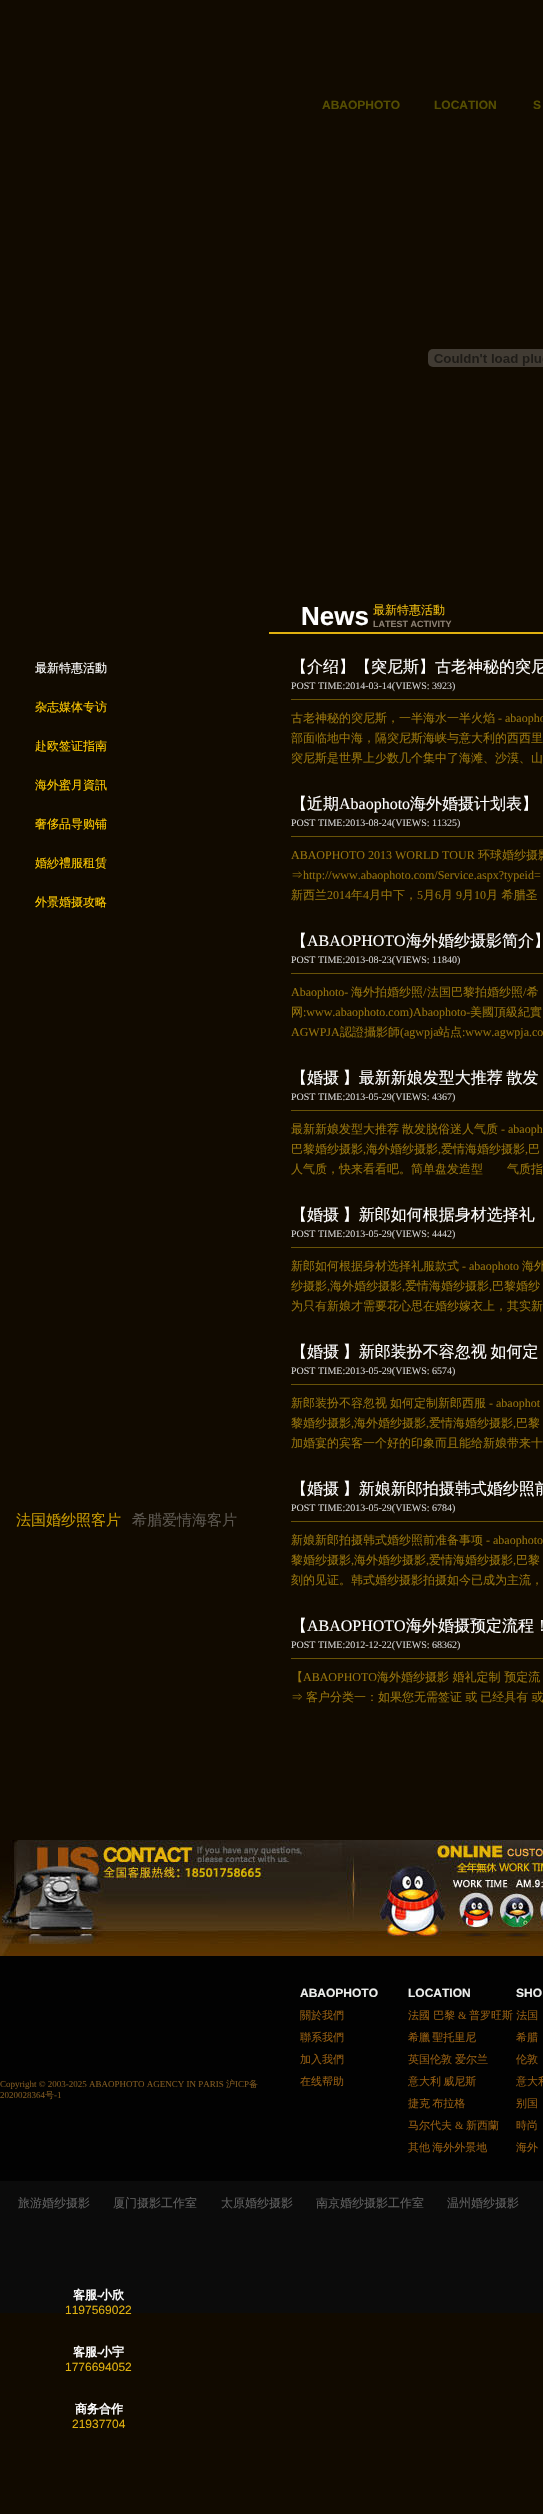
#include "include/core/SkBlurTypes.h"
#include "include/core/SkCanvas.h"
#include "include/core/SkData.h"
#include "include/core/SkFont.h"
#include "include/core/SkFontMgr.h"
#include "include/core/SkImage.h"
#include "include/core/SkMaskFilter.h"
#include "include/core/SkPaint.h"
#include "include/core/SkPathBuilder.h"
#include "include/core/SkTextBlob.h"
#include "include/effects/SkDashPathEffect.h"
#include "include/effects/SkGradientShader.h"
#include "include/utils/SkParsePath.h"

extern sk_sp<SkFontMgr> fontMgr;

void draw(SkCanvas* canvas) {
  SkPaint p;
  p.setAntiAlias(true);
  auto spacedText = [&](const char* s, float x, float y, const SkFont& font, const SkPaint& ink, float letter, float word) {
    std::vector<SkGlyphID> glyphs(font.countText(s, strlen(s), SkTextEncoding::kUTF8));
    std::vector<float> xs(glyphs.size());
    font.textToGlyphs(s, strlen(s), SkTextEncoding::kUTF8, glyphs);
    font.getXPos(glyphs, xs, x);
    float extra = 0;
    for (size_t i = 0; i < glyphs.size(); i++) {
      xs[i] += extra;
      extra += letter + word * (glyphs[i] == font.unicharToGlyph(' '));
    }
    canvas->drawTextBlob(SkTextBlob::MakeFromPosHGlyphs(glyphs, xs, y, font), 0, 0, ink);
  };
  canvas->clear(SkColorSetRGB(17, 10, 0));
  canvas->drawImageRect(SkImages::DeferredFromEncodedData(SkData::MakeFromFileName("images/1.png")), SkRect::MakeLTRB(428, 349, 543, 367), SkSamplingOptions());
  p.setColor(SkColorSetRGB(225, 177, 15));
  canvas->drawRect(SkRect::MakeLTRB(269, 632, 543, 634), p);
  p.setColor(SkColorSetRGB(104, 82, 7));
  canvas->drawRect(SkRect::MakeLTRB(291, 699, 543, 700), p);
  canvas->drawRect(SkRect::MakeLTRB(291, 836, 543, 837), p);
  canvas->drawRect(SkRect::MakeLTRB(291, 973, 543, 974), p);
  canvas->drawRect(SkRect::MakeLTRB(291, 1110, 543, 1111), p);
  canvas->drawRect(SkRect::MakeLTRB(291, 1247, 543, 1248), p);
  canvas->drawRect(SkRect::MakeLTRB(291, 1384, 543, 1385), p);
  canvas->drawRect(SkRect::MakeLTRB(291, 1521, 543, 1522), p);
  canvas->drawRect(SkRect::MakeLTRB(291, 1658, 543, 1659), p);
  p.setColor(SkColorSetRGB(2, 2, 2));
  canvas->drawRect(SkRect::MakeLTRB(0, 1956, 543, 2181), p);
  canvas->drawImageRect(SkImages::DeferredFromEncodedData(SkData::MakeFromFileName("images/2.png")), SkRect::MakeLTRB(0, 1840, 543, 1956), SkSamplingOptions());
  p.setColor(SkColorSetRGB(11, 11, 11));
  canvas->drawRect(SkRect::MakeLTRB(0, 2181, 543, 2313), p);
  SkFont font1(fontMgr->matchFamilyStyle("Liberation Sans", SkFontStyle::Bold()), 12);
  font1.setSubpixel(true);
  p.setColor(SkColorSetRGB(86, 78, 1));
  canvas->drawString("ABAOPHOTO", 322, 109, font1, p);
  canvas->drawString("LOCATION", 434, 109, font1, p);
  canvas->drawString("S", 533, 109, font1, p);
  SkFont font2(fontMgr->matchFamilyStyle("WenQuanYi Zen Hei", SkFontStyle(500, SkFontStyle::kNormal_Width, SkFontStyle::kUpright_Slant)), 12);
  font2.setSubpixel(true);
  p.setColor(SK_ColorWHITE);
  canvas->drawString("最新特惠活動", 35, 672, font2, p);
  p.setColor(SkColorSetRGB(254, 201, 1));
  canvas->drawString("杂志媒体专访", 35, 711, font2, p);
  canvas->drawString("赴欧签证指南", 35, 750, font2, p);
  canvas->drawString("海外蜜月資訊", 35, 789, font2, p);
  canvas->drawString("奢侈品导购铺", 35, 828, font2, p);
  canvas->drawString("婚紗禮服租赁", 35, 867, font2, p);
  canvas->drawString("外景婚摄攻略", 35, 906, font2, p);
  SkFont font3(fontMgr->matchFamilyStyle("WenQuanYi Zen Hei", SkFontStyle(500, SkFontStyle::kNormal_Width, SkFontStyle::kUpright_Slant)), 15);
  font3.setSubpixel(true);
  p.setColor(SkColorSetRGB(197, 152, 2));
  canvas->drawString("法国婚纱照客片", 16, 1525, font3, p);
  p.setColor(SkColorSetRGB(91, 86, 79));
  canvas->drawString("希腊爱情海客片", 132, 1525, font3, p);
  SkFont font4(fontMgr->matchFamilyStyle("Liberation Sans", SkFontStyle::Bold()), 26);
  font4.setSubpixel(true);
  p.setColor(SK_ColorWHITE);
  canvas->drawString("News", 301, 625, font4, p);
  p.setColor(SkColorSetRGB(237, 187, 15));
  canvas->drawString("最新特惠活動", 373, 614, font2, p);
  SkFont font5(fontMgr->matchFamilyStyle("Liberation Sans", SkFontStyle::Bold()), 9);
  font5.setSubpixel(true);
  p.setColor(SkColorSetRGB(140, 129, 115));
  canvas->drawString("LATEST ACTIVITY", 373, 627, font5, p);
  SkFont font6(fontMgr->matchFamilyStyle("WenQuanYi Zen Hei", SkFontStyle(500, SkFontStyle::kNormal_Width, SkFontStyle::kUpright_Slant)), 16);
  font6.setSubpixel(true);
  p.setColor(SK_ColorWHITE);
  canvas->drawString("【介绍】【突尼斯】古老神秘的突尼", 291, 672, font6, p);
  SkFont font7(fontMgr->matchFamilyStyle("Liberation Serif", SkFontStyle::Normal()), 10);
  font7.setSubpixel(true);
  p.setColor(SkColorSetRGB(208, 208, 208));
  canvas->drawString("POST TIME:2014-03-14(VIEWS: 3923)", 291, 689, font7, p);
  p.setColor(SkColorSetRGB(149, 115, 12));
  canvas->drawString("古老神秘的突尼斯，一半海水一半火焰", 291, 722, font2, p);
  SkFont font8(fontMgr->matchFamilyStyle("Liberation Serif", SkFontStyle::Normal()), 12);
  font8.setSubpixel(true);
  canvas->drawString("- abaopho", 498, 722, font8, p);
  canvas->drawString("部面临地中海，隔突尼斯海峡与意大利的西西里", 291, 742, font2, p);
  canvas->drawString("突尼斯是世界上少数几个集中了海滩、沙漠、山", 291, 762, font2, p);
  p.setColor(SK_ColorWHITE);
  canvas->drawString("【近期", 291, 809, font6, p);
  SkFont font9(fontMgr->matchFamilyStyle("Liberation Serif", SkFontStyle::Normal()), 16);
  font9.setSubpixel(true);
  canvas->drawString("Abaophoto", 339, 809, font9, p);
  canvas->drawString("海外婚摄计划表】", 410, 809, font6, p);
  p.setColor(SkColorSetRGB(208, 208, 208));
  canvas->drawString("POST TIME:2013-08-24(VIEWS: 11325)", 291, 826, font7, p);
  p.setColor(SkColorSetRGB(149, 115, 12));
  canvas->drawString("ABAOPHOTO 2013 WORLD TOUR", 291, 859, font8, p);
  canvas->drawString("环球婚纱摄影", 478, 859, font2, p);
  canvas->drawString("⇒", 291, 879, font2, p);
  canvas->drawString("http://www.abaophoto.com/Service.aspx?typeid=", 303, 879, font8, p);
  canvas->drawString("新西兰", 291, 899, font2, p);
  canvas->drawString("2014", 327, 899, font8, p);
  canvas->drawString("年", 351, 899, font2, p);
  canvas->drawString("4", 363, 899, font8, p);
  canvas->drawString("月中下，", 369, 899, font2, p);
  canvas->drawString("5", 417, 899, font8, p);
  canvas->drawString("月", 423, 899, font2, p);
  canvas->drawString("6", 435, 899, font8, p);
  canvas->drawString("月", 441, 899, font2, p);
  canvas->drawString("9", 456, 899, font8, p);
  canvas->drawString("月", 462, 899, font2, p);
  canvas->drawString("10", 474, 899, font8, p);
  canvas->drawString("月 希腊圣", 486, 899, font2, p);
  p.setColor(SK_ColorWHITE);
  canvas->drawString("【", 291, 946, font6, p);
  canvas->drawString("ABAOPHOTO", 307, 946, font9, p);
  canvas->drawString("海外婚纱摄影简介】", 406, 946, font6, p);
  p.setColor(SkColorSetRGB(208, 208, 208));
  canvas->drawString("POST TIME:2013-08-23(VIEWS: 11840)", 291, 963, font7, p);
  p.setColor(SkColorSetRGB(149, 115, 12));
  canvas->drawString("Abaophoto-", 291, 996, font8, p);
  canvas->drawString("海外拍婚纱照", 351, 996, font2, p);
  canvas->drawString("/", 423, 996, font8, p);
  canvas->drawString("法国巴黎拍婚纱照 希", 427, 996, font2, p);
  canvas->drawString("/", 523, 996, font8, p);
  canvas->drawString("网", 291, 1016, font2, p);
  canvas->drawString(":www.abaophoto.com)Abaophoto-", 303, 1016, font8, p);
  canvas->drawString("美國頂級紀實", 470, 1016, font2, p);
  canvas->drawString("AGWPJA", 291, 1036, font8, p);
  canvas->drawString("認證攝影師", 340, 1036, font2, p);
  canvas->drawString("(agwpja", 400, 1036, font8, p);
  canvas->drawString("站点", 438, 1036, font2, p);
  canvas->drawString(":www.agwpja.co", 462, 1036, font8, p);
  p.setColor(SK_ColorWHITE);
  spacedText("【婚摄 】最新新娘发型大推荐 散发", 291, 1083, font6, p, 0, -1);
  p.setColor(SkColorSetRGB(208, 208, 208));
  canvas->drawString("POST TIME:2013-05-29(VIEWS: 4367)", 291, 1100, font7, p);
  p.setColor(SkColorSetRGB(149, 115, 12));
  canvas->drawString("最新新娘发型大推荐", 291, 1133, font2, p);
  canvas->drawString("散发脱俗迷人气质", 402, 1133, font2, p);
  canvas->drawString("- abaoph", 501, 1133, font8, p);
  canvas->drawString("巴黎婚纱摄影", 291, 1153, font2, p);
  canvas->drawString(",", 363, 1153, font8, p);
  canvas->drawString("海外婚纱摄影", 366, 1153, font2, p);
  canvas->drawString(",", 438, 1153, font8, p);
  canvas->drawString("爱情海婚纱摄影", 441, 1153, font2, p);
  canvas->drawString(",", 525, 1153, font8, p);
  canvas->drawString("巴", 528, 1153, font2, p);
  canvas->drawString("人气质，快来看看吧。简单盘发造型　　气质指", 291, 1173, font2, p);
  p.setColor(SK_ColorWHITE);
  spacedText("【婚摄 】新郎如何根据身材选择礼", 291, 1220, font6, p, 0, -1);
  p.setColor(SkColorSetRGB(208, 208, 208));
  canvas->drawString("POST TIME:2013-05-29(VIEWS: 4442)", 291, 1237, font7, p);
  p.setColor(SkColorSetRGB(149, 115, 12));
  canvas->drawString("新郎如何根据身材选择礼服款式", 291, 1270, font2, p);
  canvas->drawString("- abaophoto", 462, 1270, font8, p);
  canvas->drawString("海外", 522, 1270, font2, p);
  canvas->drawString("纱摄影", 291, 1290, font2, p);
  canvas->drawString(",", 327, 1290, font8, p);
  canvas->drawString("海外婚纱摄影", 330, 1290, font2, p);
  canvas->drawString(",", 402, 1290, font8, p);
  canvas->drawString("爱情海婚纱摄影", 405, 1290, font2, p);
  canvas->drawString(",", 489, 1290, font8, p);
  canvas->drawString("巴黎婚纱", 492, 1290, font2, p);
  canvas->drawString("为只有新娘才需要花心思在婚纱嫁衣上，其实新", 291, 1310, font2, p);
  p.setColor(SK_ColorWHITE);
  spacedText("【婚摄 】新郎装扮不容忽视 如何定", 291, 1357, font6, p, 0, -1);
  p.setColor(SkColorSetRGB(208, 208, 208));
  canvas->drawString("POST TIME:2013-05-29(VIEWS: 6574)", 291, 1374, font7, p);
  p.setColor(SkColorSetRGB(149, 115, 12));
  canvas->drawString("新郎装扮不容忽视", 291, 1407, font2, p);
  canvas->drawString("如何定制新郎西服", 390, 1407, font2, p);
  canvas->drawString("- abaophot", 489, 1407, font8, p);
  canvas->drawString("黎婚纱摄影", 291, 1427, font2, p);
  canvas->drawString(",", 351, 1427, font8, p);
  canvas->drawString("海外婚纱摄影", 354, 1427, font2, p);
  canvas->drawString(",", 426, 1427, font8, p);
  canvas->drawString("爱情海婚纱摄影", 429, 1427, font2, p);
  canvas->drawString(",", 513, 1427, font8, p);
  canvas->drawString("巴黎", 516, 1427, font2, p);
  canvas->drawString("加婚宴的宾客一个好的印象而且能给新娘带来十", 291, 1447, font2, p);
  p.setColor(SK_ColorWHITE);
  spacedText("【婚摄 】新娘新郎拍摄韩式婚纱照前", 291, 1494, font6, p, 0, -1);
  p.setColor(SkColorSetRGB(208, 208, 208));
  canvas->drawString("POST TIME:2013-05-29(VIEWS: 6784)", 291, 1511, font7, p);
  p.setColor(SkColorSetRGB(149, 115, 12));
  canvas->drawString("新娘新郎拍摄韩式婚纱照前准备事项", 291, 1544, font2, p);
  canvas->drawString("- abaophoto", 486, 1544, font8, p);
  canvas->drawString("黎婚纱摄影", 291, 1564, font2, p);
  canvas->drawString(",", 351, 1564, font8, p);
  canvas->drawString("海外婚纱摄影", 354, 1564, font2, p);
  canvas->drawString(",", 426, 1564, font8, p);
  canvas->drawString("爱情海婚纱摄影", 429, 1564, font2, p);
  canvas->drawString(",", 513, 1564, font8, p);
  canvas->drawString("巴黎", 516, 1564, font2, p);
  canvas->drawString("刻的见证。韩式婚纱摄影拍摄如今已成为主流，", 291, 1584, font2, p);
  p.setColor(SK_ColorWHITE);
  canvas->drawString("【", 291, 1631, font6, p);
  canvas->drawString("ABAOPHOTO", 307, 1631, font9, p);
  canvas->drawString("海外婚摄预定流程！", 406, 1631, font6, p);
  p.setColor(SkColorSetRGB(208, 208, 208));
  canvas->drawString("POST TIME:2012-12-22(VIEWS: 68362)", 291, 1648, font7, p);
  p.setColor(SkColorSetRGB(149, 115, 12));
  canvas->drawString("【", 291, 1681, font2, p);
  canvas->drawString("ABAOPHOTO", 303, 1681, font8, p);
  canvas->drawString("海外婚纱摄影 婚礼定制 预定流", 377, 1681, font2, p);
  spacedText("⇒ 客户分类一：如果您无需签证 或 已经具有 或", 291, 1701, font2, p, 0, -0.5f);
  SkFont font10(fontMgr->matchFamilyStyle("Liberation Serif", SkFontStyle::Normal()), 9);
  font10.setSubpixel(true);
  p.setColor(SkColorSetRGB(125, 87, 31));
  canvas->drawString("Copyright © 2003-2025 ABAOPHOTO AGENCY IN PARIS", 0, 2087, font10, p);
  SkFont font11(fontMgr->matchFamilyStyle("WenQuanYi Zen Hei", SkFontStyle(500, SkFontStyle::kNormal_Width, SkFontStyle::kUpright_Slant)), 9);
  font11.setSubpixel(true);
  canvas->drawString("沪", 226, 2087, font11, p);
  canvas->drawString("ICP", 235, 2087, font10, p);
  canvas->drawString("备", 249, 2087, font11, p);
  canvas->drawString("2020028364", 0, 2098, font10, p);
  canvas->drawString("号", 45, 2098, font11, p);
  canvas->drawString("-1", 54, 2098, font10, p);
  p.setColor(SkColorSetRGB(236, 237, 235));
  canvas->drawString("ABAOPHOTO", 300, 1997, font1, p);
  SkFont font12(fontMgr->matchFamilyStyle("WenQuanYi Zen Hei", SkFontStyle(500, SkFontStyle::kNormal_Width, SkFontStyle::kUpright_Slant)), 11);
  font12.setSubpixel(true);
  p.setColor(SkColorSetRGB(147, 92, 16));
  canvas->drawString("關於我們", 300, 2019, font12, p);
  canvas->drawString("聯系我們", 300, 2041, font12, p);
  canvas->drawString("加入我們", 300, 2063, font12, p);
  canvas->drawString("在线帮助", 300, 2085, font12, p);
  p.setColor(SkColorSetRGB(236, 237, 235));
  canvas->drawString("LOCATION", 408, 1997, font1, p);
  p.setColor(SkColorSetRGB(147, 92, 16));
  canvas->drawString("法國 巴黎", 408, 2019, font12, p);
  SkFont font13(fontMgr->matchFamilyStyle("Liberation Serif", SkFontStyle::Normal()), 11);
  font13.setSubpixel(true);
  canvas->drawString("&", 458, 2019, font13, p);
  canvas->drawString("普罗旺斯 法国", 469, 2019, font12, p);
  spacedText("希臘 聖托里尼", 408, 2041, font12, p, 0, -1);
  canvas->drawString("英国伦敦", 408, 2063, font12, p);
  canvas->drawString("爱尔兰", 455, 2063, font12, p);
  spacedText("意大利 威尼斯", 408, 2085, font12, p, 0, -1);
  spacedText("捷克 布拉格", 408, 2107, font12, p, 0, -1);
  canvas->drawString("马尔代夫", 408, 2129, font12, p);
  canvas->drawString("&", 455, 2129, font13, p);
  canvas->drawString("新西蘭", 466, 2129, font12, p);
  spacedText("其他 海外外景地", 408, 2151, font12, p, 0, -1);
  p.setColor(SkColorSetRGB(236, 237, 235));
  canvas->drawString("SHO", 516, 1997, font1, p);
  p.setColor(SkColorSetRGB(147, 92, 16));
  canvas->drawString("希腊", 516, 2041, font12, p);
  canvas->drawString("伦敦", 516, 2063, font12, p);
  canvas->drawString("意大利", 516, 2085, font12, p);
  canvas->drawString("别国", 516, 2107, font12, p);
  canvas->drawString("時尚", 516, 2129, font12, p);
  canvas->drawString("海外", 516, 2151, font12, p);
  p.setColor(SkColorSetRGB(95, 95, 95));
  canvas->drawString("旅游婚纱摄影", 18, 2207, font2, p);
  canvas->drawString("厦门摄影工作室", 113, 2207, font2, p);
  canvas->drawString("太原婚纱摄影", 221, 2207, font2, p);
  canvas->drawString("南京婚纱摄影工作室", 316, 2207, font2, p);
  canvas->drawString("温州婚纱摄影", 447, 2207, font2, p);
  SkFont font14(fontMgr->matchFamilyStyle("WenQuanYi Zen Hei", SkFontStyle::Bold()), 12);
  font14.setSubpixel(true);
  p.setColor(SK_ColorWHITE);
  canvas->drawString("客服", 73, 2299, font14, p);
  SkFont font15(fontMgr->matchFamilyStyle("Liberation Serif", SkFontStyle::Bold()), 12);
  font15.setSubpixel(true);
  canvas->drawString("-", 97, 2299, font15, p);
  canvas->drawString("小欣", 100, 2299, font14, p);
  SkFont font16(fontMgr->matchFamilyStyle("Liberation Sans", SkFontStyle::Normal()), 12);
  font16.setSubpixel(true);
  p.setColor(SkColorSetRGB(225, 177, 15));
  canvas->drawString("1197569022", 65, 2314, font16, p);
  p.setColor(SK_ColorWHITE);
  canvas->drawString("客服", 73, 2356, font14, p);
  canvas->drawString("-", 97, 2356, font15, p);
  canvas->drawString("小宇", 100, 2356, font14, p);
  p.setColor(SkColorSetRGB(225, 177, 15));
  canvas->drawString("1776694052", 65, 2371, font16, p);
  p.setColor(SK_ColorWHITE);
  canvas->drawString("商务合作", 75, 2413, font14, p);
  p.setColor(SkColorSetRGB(225, 177, 15));
  canvas->drawString("21937704", 72, 2428, font16, p);
}
